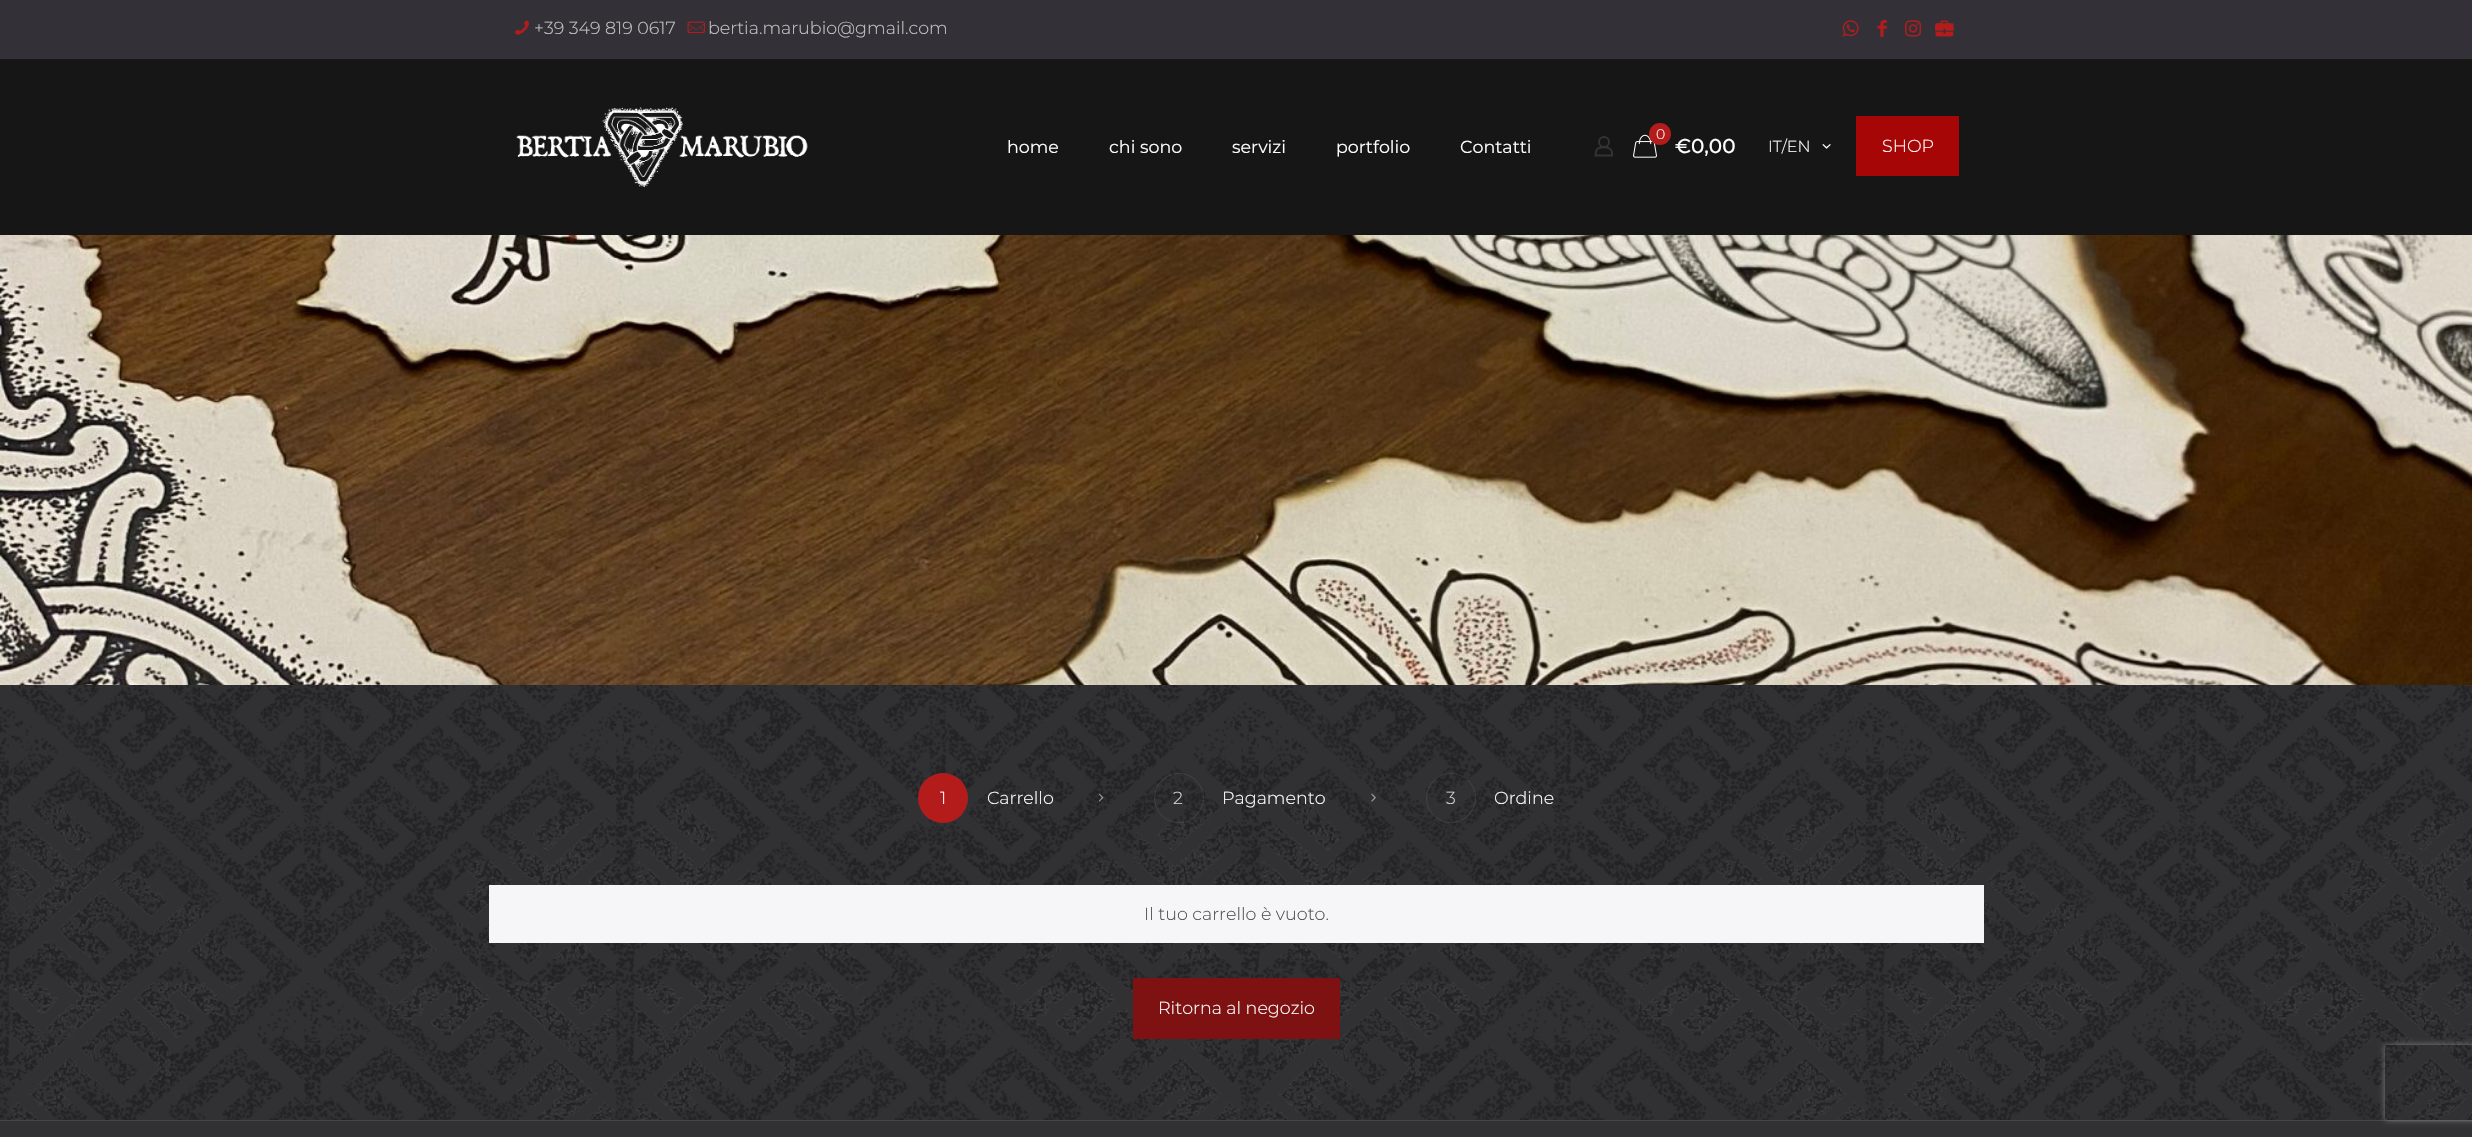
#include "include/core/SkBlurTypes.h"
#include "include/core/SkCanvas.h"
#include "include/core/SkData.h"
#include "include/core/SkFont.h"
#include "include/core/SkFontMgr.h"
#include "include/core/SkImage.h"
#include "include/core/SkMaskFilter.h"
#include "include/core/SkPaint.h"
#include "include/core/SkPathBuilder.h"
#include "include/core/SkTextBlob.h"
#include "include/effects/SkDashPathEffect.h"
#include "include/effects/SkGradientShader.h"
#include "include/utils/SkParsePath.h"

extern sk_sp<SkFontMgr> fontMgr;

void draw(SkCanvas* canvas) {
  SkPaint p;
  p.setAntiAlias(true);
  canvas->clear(SkColorSetRGB(22, 22, 22));
  p.setColor(SkColorSetRGB(51, 49, 55));
  canvas->drawRect(SkRect::MakeLTRB(0, 0, 2472, 59), p);
  canvas->drawImageRect(SkImages::DeferredFromEncodedData(SkData::MakeFromFileName("images/1.png")), SkRect::MakeLTRB(515, 20, 529, 35), SkSamplingOptions());
  canvas->drawImageRect(SkImages::DeferredFromEncodedData(SkData::MakeFromFileName("images/2.png")), SkRect::MakeLTRB(687, 21, 705, 34), SkSamplingOptions());
  canvas->drawImageRect(SkImages::DeferredFromEncodedData(SkData::MakeFromFileName("images/3.png")), SkRect::MakeLTRB(1842, 20, 1859, 37), SkSamplingOptions());
  canvas->drawImageRect(SkImages::DeferredFromEncodedData(SkData::MakeFromFileName("images/4.png")), SkRect::MakeLTRB(1877, 20, 1887, 37), SkSamplingOptions());
  canvas->drawImageRect(SkImages::DeferredFromEncodedData(SkData::MakeFromFileName("images/5.png")), SkRect::MakeLTRB(1905, 20, 1922, 37), SkSamplingOptions());
  canvas->drawImageRect(SkImages::DeferredFromEncodedData(SkData::MakeFromFileName("images/6.png")), SkRect::MakeLTRB(1935, 20, 1954, 37), SkSamplingOptions());
  canvas->drawImageRect(SkImages::DeferredFromEncodedData(SkData::MakeFromFileName("images/7.png")), SkRect::MakeLTRB(516, 107, 808, 188), SkSamplingOptions());
  p.setStyle(SkPaint::kStroke_Style);
  p.setStrokeWidth(1.9f);
  p.setColor(SkColorSetRGB(51, 51, 51));
  canvas->drawCircle(1604, 142, 5, p);
  canvas->drawPath(SkPathBuilder().moveTo(1612, 152.5f).lineTo(1612, 155.5f).lineTo(1595.5f, 155.5f).lineTo(1596, 151.5f).cubicTo(1597.5f, 145.5f, 1612, 146, 1612, 152.5f).close().detach(), p);
  canvas->drawImageRect(SkImages::DeferredFromEncodedData(SkData::MakeFromFileName("images/8.png")), SkRect::MakeLTRB(1633, 134, 1657, 158), SkSamplingOptions());
  p.setStyle(SkPaint::kFill_Style);
  p.setColor(SkColorSetRGB(180, 28, 28));
  canvas->drawCircle(1660, 134, 11, p);
  canvas->drawImageRect(SkImages::DeferredFromEncodedData(SkData::MakeFromFileName("images/9.png")), SkRect::MakeLTRB(1822, 144, 1831, 149), SkSamplingOptions());
  p.setColor(SkColorSetRGB(167, 6, 6));
  canvas->drawRect(SkRect::MakeLTRB(1856, 116, 1959, 176), p);
  canvas->drawImageRect(SkImages::DeferredFromEncodedData(SkData::MakeFromFileName("images/10.png")), SkRect::MakeLTRB(0, 235, 2472, 685), SkSamplingOptions());
  p.setColor(SkColorSetRGB(49, 49, 52));
  canvas->drawRect(SkRect::MakeLTRB(0, 685, 2472, 1120), p);
  canvas->drawImageRect(SkImages::DeferredFromEncodedData(SkData::MakeFromFileName("images/11.png")), SkRect::MakeLTRB(0, 685, 2472, 1120), SkSamplingOptions());
  p.setColor(SkColorSetRGB(180, 28, 28));
  canvas->drawCircle(943, 798, 25, p);
  canvas->drawImageRect(SkImages::DeferredFromEncodedData(SkData::MakeFromFileName("images/12.png")), SkRect::MakeLTRB(1098, 793, 1104, 802), SkSamplingOptions());
  p.setStyle(SkPaint::kStroke_Style);
  p.setStrokeWidth(1);
  p.setColor(SkColorSetARGB(20, 255, 255, 255));
  canvas->drawCircle(1179, 798, 24.5f, p);
  canvas->drawImageRect(SkImages::DeferredFromEncodedData(SkData::MakeFromFileName("images/13.png")), SkRect::MakeLTRB(1371, 793, 1376, 802), SkSamplingOptions());
  canvas->drawCircle(1451, 798, 24.5f, p);
  p.setStyle(SkPaint::kFill_Style);
  p.setColor(SkColorSetRGB(246, 245, 248));
  canvas->drawRect(SkRect::MakeLTRB(489, 885, 1984, 943), p);
  p.setColor(SkColorSetRGB(126, 18, 18));
  canvas->drawRect(SkRect::MakeLTRB(1133, 978, 1340, 1039), p);
  p.setColor(SkColorSetRGB(49, 49, 52));
  canvas->drawRect(SkRect::MakeLTRB(0, 1121, 2472, 1137), p);
  p.setColor(SkColorSetRGB(70, 70, 72));
  canvas->drawRect(SkRect::MakeLTRB(0, 1120, 2472, 1121), p);
  canvas->save();
  canvas->clipPath(SkPathBuilder(SkPathFillType::kEvenOdd).moveTo(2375, 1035).lineTo(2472, 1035).lineTo(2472, 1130).lineTo(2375, 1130).close().moveTo(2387.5f, 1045).lineTo(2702.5f, 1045).cubicTo(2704, 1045, 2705, 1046, 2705, 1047.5f).lineTo(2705, 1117.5f).cubicTo(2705, 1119, 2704, 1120, 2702.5f, 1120).lineTo(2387.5f, 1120).cubicTo(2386, 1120, 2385, 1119, 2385, 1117.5f).lineTo(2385, 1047.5f).cubicTo(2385, 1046, 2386, 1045, 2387.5f, 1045).close().detach(), true);
  p.setColor(SkColorSetRGB(128, 128, 128));
  p.setMaskFilter(SkMaskFilter::MakeBlur(kNormal_SkBlurStyle, 3));
  canvas->drawRoundRect(SkRect::MakeLTRB(2385, 1045, 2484, 1120), 2.5f, 2.5f, p);
  p.setMaskFilter(nullptr);
  canvas->restore();
  SkFont font1(fontMgr->matchFamilyStyle("Montserrat", SkFontStyle(300, SkFontStyle::kNormal_Width, SkFontStyle::kUpright_Slant)), 17.5f);
  font1.setSubpixel(true);
  p.setColor(SkColorSetRGB(196, 196, 196));
  canvas->drawString("+39 349 819 0617", 534, 34, font1, p);
  canvas->drawString("bertia.marubio@gmail.com", 708, 34, font1, p);
  SkFont font2(fontMgr->matchFamilyStyle("Montserrat", SkFontStyle::Normal()), 17.5f);
  font2.setSubpixel(true);
  p.setColor(SK_ColorWHITE);
  canvas->drawString("home", 1007, 153, font2, p);
  canvas->drawString("chi sono", 1109, 153, font2, p);
  canvas->drawString("servizi", 1232, 153, font2, p);
  canvas->drawString("portfolio", 1336, 153, font2, p);
  canvas->drawString("Contatti", 1460, 153, font2, p);
  SkFont font3(fontMgr->matchFamilyStyle("Montserrat", SkFontStyle(300, SkFontStyle::kNormal_Width, SkFontStyle::kUpright_Slant)), 14);
  font3.setSubpixel(true);
  canvas->drawString("0", 1656, 139, font3, p);
  SkFont font4(fontMgr->matchFamilyStyle("Montserrat", SkFontStyle(500, SkFontStyle::kNormal_Width, SkFontStyle::kUpright_Slant)), 20);
  font4.setSubpixel(true);
  canvas->drawString("€0,00", 1675, 153, font4, p);
  SkFont font5(fontMgr->matchFamilyStyle("Montserrat", SkFontStyle(300, SkFontStyle::kNormal_Width, SkFontStyle::kUpright_Slant)), 16);
  font5.setSubpixel(true);
  canvas->drawString("IT/EN", 1768, 152, font5, p);
  canvas->drawString("SHOP", 1882, 152, font1, p);
  canvas->drawString("1", 940, 804, font1, p);
  canvas->drawString("Carrello", 987, 804, font1, p);
  p.setColor(SkColorSetRGB(213, 213, 214));
  canvas->drawString("2", 1173, 804, font1, p);
  p.setColor(SK_ColorWHITE);
  canvas->drawString("Pagamento", 1222, 804, font1, p);
  p.setColor(SkColorSetRGB(213, 213, 214));
  canvas->drawString("3", 1446, 804, font1, p);
  p.setColor(SK_ColorWHITE);
  canvas->drawString("Ordine", 1494, 804, font1, p);
  p.setColor(SkColorSetRGB(81, 81, 81));
  canvas->drawString("Il tuo carrello è vuoto.", 1144, 920, font1, p);
  p.setColor(SK_ColorWHITE);
  canvas->drawString("Ritorna al negozio", 1158, 1014, font1, p);
}
